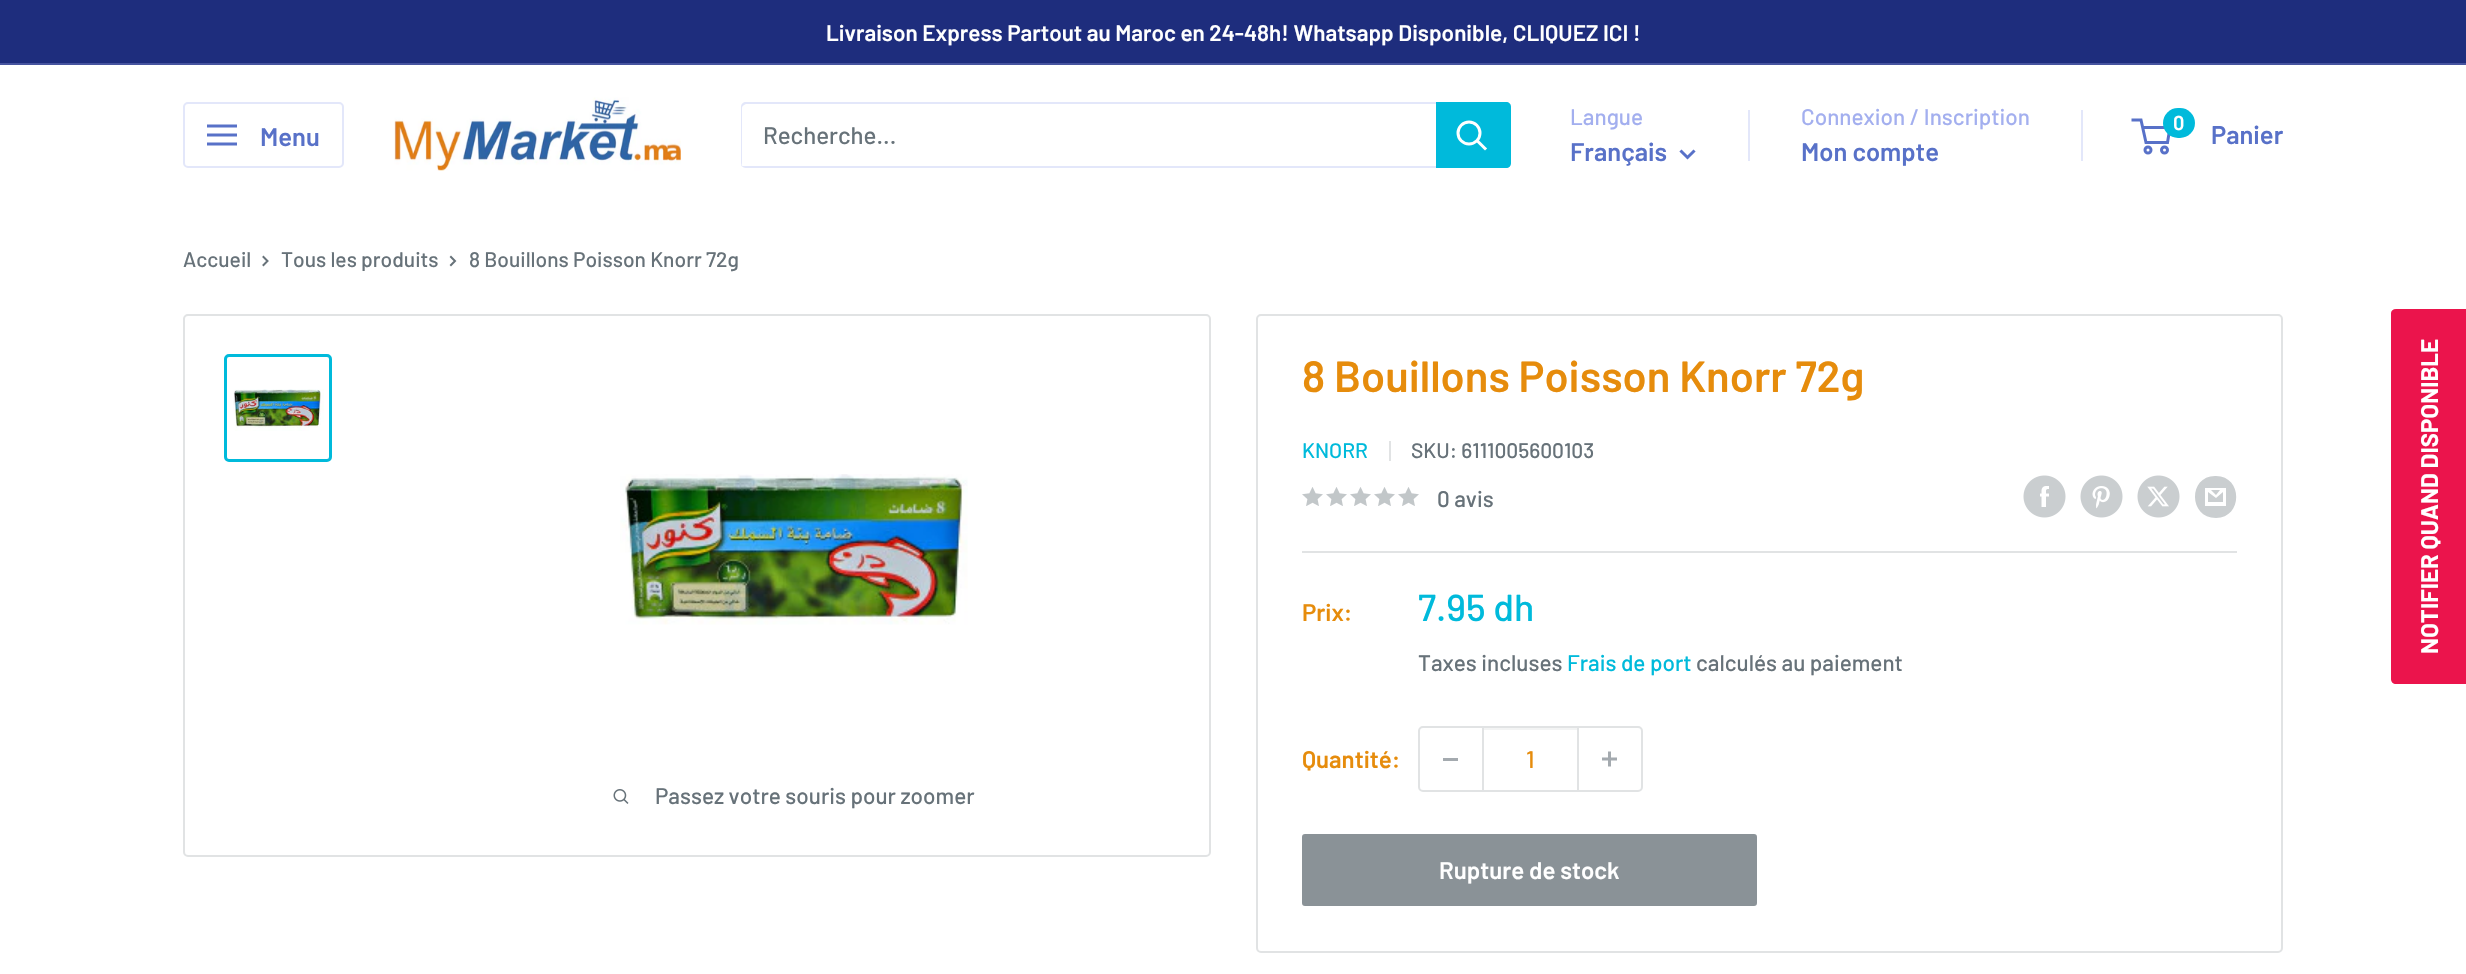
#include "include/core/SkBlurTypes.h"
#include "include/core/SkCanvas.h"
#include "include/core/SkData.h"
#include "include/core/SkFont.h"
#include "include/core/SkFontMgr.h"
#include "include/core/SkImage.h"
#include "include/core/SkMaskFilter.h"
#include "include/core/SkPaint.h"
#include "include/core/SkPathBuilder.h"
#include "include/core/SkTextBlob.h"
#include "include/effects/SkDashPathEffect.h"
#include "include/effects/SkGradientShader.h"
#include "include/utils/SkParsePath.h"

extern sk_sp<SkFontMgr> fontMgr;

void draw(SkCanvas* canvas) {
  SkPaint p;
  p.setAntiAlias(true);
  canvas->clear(SK_ColorWHITE);
  p.setColor(SkColorSetRGB(30, 45, 125));
  canvas->drawRect(SkRect::MakeLTRB(0, 0, 2466, 63), p);
  p.setColor(SkColorSetRGB(70, 84, 159));
  canvas->drawRect(SkRect::MakeLTRB(0, 63, 2466, 65), p);
  p.setStyle(SkPaint::kStroke_Style);
  p.setStrokeWidth(2);
  p.setColor(SkColorSetRGB(227, 231, 250));
  canvas->drawRoundRect(SkRect::MakeLTRB(184, 103, 343, 167), 4, 4, p);
  canvas->drawImageRect(SkImages::DeferredFromEncodedData(SkData::MakeFromFileName("images/1.png")), SkRect::MakeLTRB(207, 124, 237, 146), SkSamplingOptions());
  canvas->drawImageRect(SkImages::DeferredFromEncodedData(SkData::MakeFromFileName("images/2.png")), SkRect::MakeLTRB(394, 97, 681, 171), SkSamplingOptions());
  p.setStyle(SkPaint::kFill_Style);
  canvas->drawPath(SkPathBuilder().moveTo(741, 165).cubicTo(742, 167, 744, 168, 746, 168).lineTo(1506, 168).cubicTo(1509, 168, 1511, 166, 1511, 163).lineTo(1511, 107).cubicTo(1511, 105, 1510, 103, 1508, 103).lineTo(1509, 105).lineTo(1509, 162).cubicTo(1509, 164, 1507, 166, 1504, 166).lineTo(744, 166).cubicTo(743, 166, 742, 166, 741, 165).close().detach(), p);
  p.setColor(SkColorSetARGB(77, 163, 175, 239));
  canvas->drawPath(SkPathBuilder().moveTo(747, 104).lineTo(1508, 104).lineTo(1511, 105).cubicTo(1510, 103, 1508, 102, 1506, 102).lineTo(746, 102).cubicTo(743, 102, 741, 104, 741, 107).lineTo(741, 163).cubicTo(741, 164, 742, 166, 742, 167).lineTo(742, 165).lineTo(742, 108).cubicTo(742, 106, 745, 104, 747, 104).close().detach(), p);
  p.setColor(SkColorSetRGB(0, 186, 219));
  canvas->drawPath(SkPathBuilder().moveTo(1436, 102).lineTo(1506, 102).cubicTo(1509, 102, 1511, 104, 1511, 107).lineTo(1511, 163).cubicTo(1511, 166, 1509, 168, 1506, 168).lineTo(1436, 168).close().detach(), p);
  p.setStyle(SkPaint::kStroke_Style);
  p.setStrokeWidth(3);
  p.setStrokeCap(SkPaint::kSquare_Cap);
  p.setColor(SK_ColorWHITE);
  canvas->drawPath(SkPathBuilder().moveTo(1485, 148.5f).lineTo(1477.5f, 141).detach(), p);
  p.setStrokeCap(SkPaint::kButt_Cap);
  canvas->drawCircle(1469, 133, 11, p);
  p.setStrokeCap(SkPaint::kSquare_Cap);
  p.setColor(SkColorSetRGB(88, 113, 200));
  canvas->drawPath(SkPathBuilder().moveTo(1693.5f, 151.5f).lineTo(1687.5f, 157.5f).lineTo(1681.5f, 151.5f).detach(), p);
  p.setStyle(SkPaint::kFill_Style);
  p.setColor(SkColorSetRGB(227, 231, 250));
  canvas->drawRect(SkRect::MakeLTRB(1748, 110, 1750, 161), p);
  canvas->drawRect(SkRect::MakeLTRB(2081, 110, 2083, 161), p);
  p.setStyle(SkPaint::kStroke_Style);
  p.setStrokeCap(SkPaint::kButt_Cap);
  p.setColor(SkColorSetRGB(88, 113, 200));
  canvas->drawCircle(2148, 150, 3, p);
  canvas->drawCircle(2164.5f, 150, 3, p);
  canvas->drawPath(SkPathBuilder().moveTo(2142.5f, 127.5f).lineTo(2170, 127.5f).lineTo(2167.5f, 142.5f).lineTo(2146, 142.5f).lineTo(2141, 120).lineTo(2131.5f, 120).detach(), p);
  p.setStyle(SkPaint::kFill_Style);
  p.setColor(SkColorSetRGB(0, 186, 219));
  canvas->drawRoundRect(SkRect::MakeLTRB(2163, 108, 2195, 138), 15, 15, p);
  p.setStyle(SkPaint::kStroke_Style);
  p.setStrokeWidth(2);
  p.setStrokeCap(SkPaint::kSquare_Cap);
  p.setColor(SkColorSetRGB(103, 114, 121));
  canvas->drawPath(SkPathBuilder().moveTo(263.5f, 257).lineTo(267.5f, 261).lineTo(263.5f, 265).detach(), p);
  canvas->drawPath(SkPathBuilder().moveTo(451, 257).lineTo(455, 261).lineTo(451, 265).detach(), p);
  p.setStrokeCap(SkPaint::kButt_Cap);
  p.setColor(SkColorSetRGB(225, 227, 228));
  canvas->drawRoundRect(SkRect::MakeLTRB(184, 315, 1210, 856), 4, 4, p);
  p.setStrokeWidth(3);
  p.setColor(SkColorSetRGB(0, 186, 219));
  canvas->drawRoundRect(SkRect::MakeLTRB(225.5f, 355.5f, 330.5f, 460.5f), 3.5f, 3.5f, p);
  canvas->drawImageRect(SkImages::DeferredFromEncodedData(SkData::MakeFromFileName("images/3.png")), SkRect::MakeLTRB(233, 389, 324, 431), SkSamplingOptions());
  canvas->drawImageRect(SkImages::DeferredFromEncodedData(SkData::MakeFromFileName("images/4.png")), SkRect::MakeLTRB(620, 474, 968, 625), SkSamplingOptions());
  canvas->drawImageRect(SkImages::DeferredFromEncodedData(SkData::MakeFromFileName("images/5.png")), SkRect::MakeLTRB(613, 789, 629, 804), SkSamplingOptions());
  p.setStrokeWidth(2);
  p.setColor(SkColorSetRGB(225, 227, 228));
  canvas->drawRoundRect(SkRect::MakeLTRB(1257, 315, 2282, 952), 4, 4, p);
  p.setStyle(SkPaint::kFill_Style);
  canvas->drawRect(SkRect::MakeLTRB(1389, 441, 1391, 461), p);
  canvas->drawImageRect(SkImages::DeferredFromEncodedData(SkData::MakeFromFileName("images/6.png")), SkRect::MakeLTRB(1302, 487, 1323, 506), SkSamplingOptions());
  canvas->drawImageRect(SkImages::DeferredFromEncodedData(SkData::MakeFromFileName("images/6.png")), SkRect::MakeLTRB(1326, 487, 1347, 506), SkSamplingOptions());
  canvas->drawImageRect(SkImages::DeferredFromEncodedData(SkData::MakeFromFileName("images/6.png")), SkRect::MakeLTRB(1350, 487, 1371, 506), SkSamplingOptions());
  canvas->drawImageRect(SkImages::DeferredFromEncodedData(SkData::MakeFromFileName("images/6.png")), SkRect::MakeLTRB(1374, 487, 1395, 506), SkSamplingOptions());
  canvas->drawImageRect(SkImages::DeferredFromEncodedData(SkData::MakeFromFileName("images/6.png")), SkRect::MakeLTRB(1398, 487, 1419, 506), SkSamplingOptions());
  canvas->drawImageRect(SkImages::DeferredFromEncodedData(SkData::MakeFromFileName("images/7.png")), SkRect::MakeLTRB(2023, 475, 2066, 518), SkSamplingOptions());
  canvas->drawImageRect(SkImages::DeferredFromEncodedData(SkData::MakeFromFileName("images/8.png")), SkRect::MakeLTRB(2080, 475, 2123, 518), SkSamplingOptions());
  canvas->drawImageRect(SkImages::DeferredFromEncodedData(SkData::MakeFromFileName("images/9.png")), SkRect::MakeLTRB(2137, 475, 2180, 518), SkSamplingOptions());
  p.setColor(SkColorSetRGB(202, 206, 208));
  canvas->drawPath(SkPathBuilder().moveTo(2216, 518).cubicTo(2188, 518, 2188, 475, 2216, 476).cubicTo(2243, 476, 2243, 518, 2216, 518).close().moveTo(2211, 490).lineTo(2220, 490).lineTo(2216, 495).close().moveTo(2223, 492).lineTo(2223, 502).lineTo(2208, 502).lineTo(2208, 492).lineTo(2216, 498).close().moveTo(2226, 488).lineTo(2205, 488).lineTo(2205, 506).lineTo(2226, 506).close().detach(), p);
  p.setColor(SkColorSetRGB(225, 227, 228));
  canvas->drawRect(SkRect::MakeLTRB(1302, 551, 2237, 553), p);
  p.setStyle(SkPaint::kStroke_Style);
  canvas->drawRoundRect(SkRect::MakeLTRB(1419, 727, 1642, 791), 4, 4, p);
  p.setStyle(SkPaint::kFill_Style);
  p.setColor(SkColorSetRGB(164, 170, 175));
  canvas->drawRect(SkRect::MakeLTRB(1443, 758, 1458, 761), p);
  p.setColor(SkColorSetRGB(243, 244, 244));
  canvas->drawRect(SkRect::MakeLTRB(1484, 728, 1577, 730), p);
  p.setColor(SkColorSetRGB(225, 227, 228));
  canvas->drawRect(SkRect::MakeLTRB(1577, 728, 1579, 791), p);
  canvas->drawRect(SkRect::MakeLTRB(1482, 728, 1484, 791), p);
  canvas->drawImageRect(SkImages::DeferredFromEncodedData(SkData::MakeFromFileName("images/10.png")), SkRect::MakeLTRB(1602, 751, 1617, 767), SkSamplingOptions());
  p.setColor(SkColorSetRGB(138, 146, 151));
  canvas->drawRoundRect(SkRect::MakeLTRB(1303, 835, 1756, 905), 2, 2, p);
  p.setStyle(SkPaint::kStroke_Style);
  canvas->drawRoundRect(SkRect::MakeLTRB(1303, 835, 1756, 905), 2, 2, p);
  p.setStyle(SkPaint::kFill_Style);
  p.setColor(SkColorSetRGB(235, 20, 76));
  canvas->drawPath(SkPathBuilder().moveTo(2391, 679).lineTo(2391, 313).cubicTo(2391, 311, 2393, 309, 2396, 309).lineTo(2466, 309).lineTo(2466, 684).lineTo(2396, 684).cubicTo(2393, 684, 2391, 682, 2391, 679).close().detach(), p);
  SkFont font1(fontMgr->matchFamilyStyle("Barlow", SkFontStyle(600, SkFontStyle::kNormal_Width, SkFontStyle::kUpright_Slant)), 22.5f);
  font1.setSubpixel(true);
  p.setColor(SK_ColorWHITE);
  canvas->drawString("Livraison Express Partout au Maroc en 24-48h! Whatsapp Disponible, CLIQUEZ ICI !", 826, 41, font1, p);
  SkFont font2(fontMgr->matchFamilyStyle("Barlow", SkFontStyle(600, SkFontStyle::kNormal_Width, SkFontStyle::kUpright_Slant)), 25.5f);
  font2.setSubpixel(true);
  p.setColor(SkColorSetRGB(88, 113, 200));
  canvas->drawString("Menu", 260, 146, font2, p);
  SkFont font3(fontMgr->matchFamilyStyle("Barlow", SkFontStyle(500, SkFontStyle::kNormal_Width, SkFontStyle::kUpright_Slant)), 24);
  font3.setSubpixel(true);
  p.setColor(SkColorSetRGB(103, 114, 121));
  canvas->drawString("Recherche...", 763, 144, font3, p);
  SkFont font4(fontMgr->matchFamilyStyle("Barlow", SkFontStyle(500, SkFontStyle::kNormal_Width, SkFontStyle::kUpright_Slant)), 22.5f);
  font4.setSubpixel(true);
  p.setColor(SkColorSetRGB(163, 175, 239));
  canvas->drawString("Langue", 1570, 125, font4, p);
  p.setColor(SkColorSetRGB(88, 113, 200));
  canvas->drawString("Français", 1570, 161, font2, p);
  p.setColor(SkColorSetRGB(163, 175, 239));
  canvas->drawString("Connexion / Inscription", 1801, 125, font4, p);
  p.setColor(SkColorSetRGB(88, 113, 200));
  canvas->drawString("Mon compte", 1801, 161, font2, p);
  SkFont font5(fontMgr->matchFamilyStyle("Barlow", SkFontStyle(600, SkFontStyle::kNormal_Width, SkFontStyle::kUpright_Slant)), 20);
  font5.setSubpixel(true);
  p.setColor(SK_ColorWHITE);
  canvas->drawString("0", 2173, 130, font5, p);
  p.setColor(SkColorSetRGB(88, 113, 200));
  canvas->drawString("Panier", 2211, 144, font2, p);
  SkFont font6(fontMgr->matchFamilyStyle("Barlow", SkFontStyle(500, SkFontStyle::kNormal_Width, SkFontStyle::kUpright_Slant)), 21);
  font6.setSubpixel(true);
  p.setColor(SkColorSetRGB(103, 114, 121));
  canvas->drawString("Accueil", 183, 267, font6, p);
  canvas->drawString("Tous les produits", 281, 267, font6, p);
  canvas->drawString("8 Bouillons Poisson Knorr 72g", 469, 267, font6, p);
  canvas->drawString("Passez votre souris pour zoomer", 655, 804, font4, p);
  SkFont font7(fontMgr->matchFamilyStyle("Barlow", SkFontStyle(600, SkFontStyle::kNormal_Width, SkFontStyle::kUpright_Slant)), 43.5f);
  font7.setSubpixel(true);
  p.setColor(SkColorSetRGB(230, 140, 12));
  canvas->drawString("8 Bouillons Poisson Knorr 72g", 1302, 392, font7, p);
  p.setColor(SkColorSetRGB(0, 186, 219));
  canvas->drawString("KNORR", 1302, 458, font6, p);
  p.setColor(SkColorSetRGB(103, 114, 121));
  canvas->drawString("SKU: 6111005600103", 1411, 458, font6, p);
  canvas->drawString("0 avis", 1437, 507, font4, p);
  SkFont font8(fontMgr->matchFamilyStyle("Barlow", SkFontStyle(600, SkFontStyle::kNormal_Width, SkFontStyle::kUpright_Slant)), 24);
  font8.setSubpixel(true);
  p.setColor(SkColorSetRGB(230, 140, 12));
  canvas->drawString("Prix:", 1302, 621, font8, p);
  SkFont font9(fontMgr->matchFamilyStyle("Barlow", SkFontStyle(500, SkFontStyle::kNormal_Width, SkFontStyle::kUpright_Slant)), 37.5f);
  font9.setSubpixel(true);
  p.setColor(SkColorSetRGB(0, 186, 219));
  canvas->drawString("7.95 dh", 1418, 621, font9, p);
  p.setColor(SkColorSetRGB(103, 114, 121));
  canvas->drawString("Taxes incluses", 1418, 671, font4, p);
  p.setColor(SkColorSetRGB(0, 186, 219));
  canvas->drawString("Frais de port", 1567, 671, font4, p);
  p.setColor(SkColorSetRGB(103, 114, 121));
  canvas->drawString("calculés au paiement", 1696, 671, font4, p);
  p.setColor(SkColorSetRGB(230, 140, 12));
  canvas->drawString("Quantité:", 1302, 768, font8, p);
  canvas->drawString("1", 1526, 768, font3, p);
  p.setColor(SK_ColorWHITE);
  canvas->drawString("Rupture de stock", 1439, 879, font8, p);
  SkFont font10(fontMgr->matchFamilyStyle("Barlow", SkFontStyle::Bold()), 24);
  font10.setSubpixel(true);
  canvas->save();
  canvas->rotate(-90, 2438, 654);
  canvas->drawString("NOTIFIER QUAND DISPONIBLE", 2438, 654, font10, p);
  canvas->restore();
}
